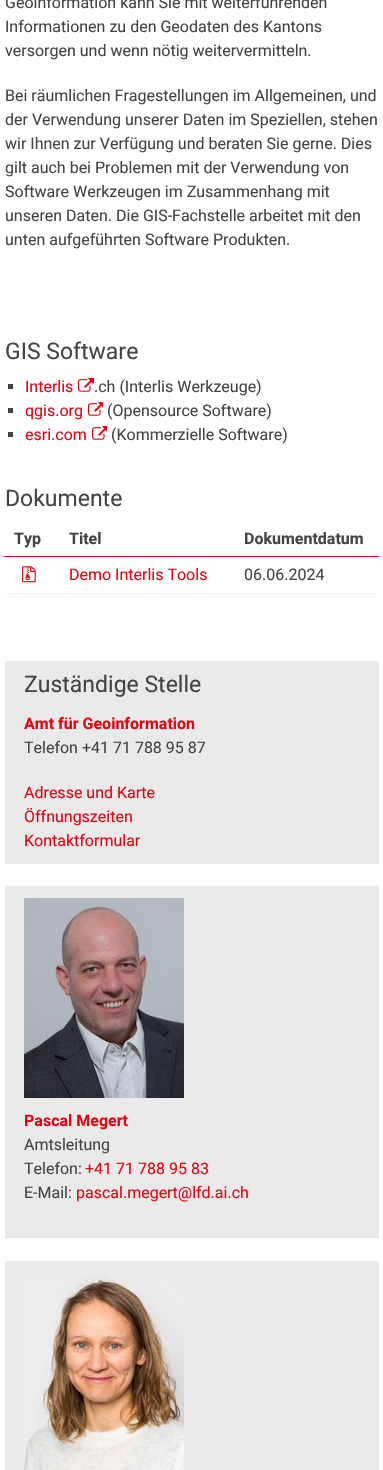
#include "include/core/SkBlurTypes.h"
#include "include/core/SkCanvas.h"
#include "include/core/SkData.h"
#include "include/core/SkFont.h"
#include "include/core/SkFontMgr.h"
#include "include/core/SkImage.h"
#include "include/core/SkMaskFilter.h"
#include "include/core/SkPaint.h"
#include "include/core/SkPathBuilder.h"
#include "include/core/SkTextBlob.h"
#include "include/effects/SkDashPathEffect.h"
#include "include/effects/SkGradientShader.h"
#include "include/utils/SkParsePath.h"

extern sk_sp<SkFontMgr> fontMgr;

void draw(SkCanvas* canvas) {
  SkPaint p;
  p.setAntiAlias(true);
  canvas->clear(SK_ColorWHITE);
  p.setColor(SkColorSetRGB(68, 68, 68));
  canvas->drawRect(SkRect::MakeLTRB(8, 384, 13, 389), p);
  canvas->drawImageRect(SkImages::DeferredFromEncodedData(SkData::MakeFromFileName("images/1.png")), SkRect::MakeLTRB(78, 378, 94, 392), SkSamplingOptions());
  canvas->drawRect(SkRect::MakeLTRB(8, 408, 13, 413), p);
  canvas->drawImageRect(SkImages::DeferredFromEncodedData(SkData::MakeFromFileName("images/2.png")), SkRect::MakeLTRB(88, 402, 103, 416), SkSamplingOptions());
  canvas->drawRect(SkRect::MakeLTRB(8, 432, 13, 437), p);
  canvas->drawImageRect(SkImages::DeferredFromEncodedData(SkData::MakeFromFileName("images/2.png")), SkRect::MakeLTRB(92, 426, 107, 440), SkSamplingOptions());
  p.setColor(SkColorSetRGB(227, 5, 19));
  canvas->drawRect(SkRect::MakeLTRB(4, 556, 379, 557), p);
  canvas->drawImageRect(SkImages::DeferredFromEncodedData(SkData::MakeFromFileName("images/3.png")), SkRect::MakeLTRB(22, 566, 36, 583), SkSamplingOptions());
  p.setColor(SkColorSetRGB(245, 245, 245));
  canvas->drawRect(SkRect::MakeLTRB(4, 593, 379, 594), p);
  p.setColor(SkColorSetRGB(234, 234, 234));
  canvas->drawRect(SkRect::MakeLTRB(5, 661, 379, 864), p);
  canvas->drawRect(SkRect::MakeLTRB(5, 886, 379, 1237), p);
  p.setColor(SkColorSetRGB(230, 230, 230));
  canvas->drawRect(SkRect::MakeLTRB(5, 1237, 379, 1238), p);
  canvas->drawImageRect(SkImages::DeferredFromEncodedData(SkData::MakeFromFileName("images/4.png")), SkRect::MakeLTRB(24, 898, 184, 1098), SkSamplingOptions());
  p.setColor(SkColorSetRGB(234, 234, 234));
  canvas->drawRect(SkRect::MakeLTRB(5, 1261, 379, 1470), p);
  canvas->drawImageRect(SkImages::DeferredFromEncodedData(SkData::MakeFromFileName("images/5.png")), SkRect::MakeLTRB(24, 1272, 184, 1470), SkSamplingOptions());
  SkFont font1(fontMgr->matchFamilyStyle("Roboto", SkFontStyle::Normal()), 16);
  font1.setSubpixel(true);
  p.setColor(SkColorSetRGB(68, 68, 68));
  canvas->drawString("Geoinformation kann Sie mit weiterführenden", 5, 8, font1, p);
  canvas->drawString("Informationen zu den Geodaten des Kantons", 5, 32, font1, p);
  canvas->drawString("versorgen und wenn nötig weitervermitteln.", 5, 56, font1, p);
  canvas->drawString("Bei räumlichen Fragestellungen im Allgemeinen, und", 5, 101, font1, p);
  canvas->drawString("der Verwendung unserer Daten im Speziellen, stehen", 5, 125, font1, p);
  canvas->drawString("wir Ihnen zur Verfügung und beraten Sie gerne. Dies", 5, 149, font1, p);
  canvas->drawString("gilt auch bei Problemen mit der Verwendung von", 5, 173, font1, p);
  canvas->drawString("Software Werkzeugen im Zusammenhang mit", 5, 197, font1, p);
  canvas->drawString("unseren Daten. Die GIS-Fachstelle arbeitet mit den", 5, 221, font1, p);
  canvas->drawString("unten aufgeführten Software Produkten.", 5, 245, font1, p);
  SkFont font2(fontMgr->matchFamilyStyle("Roboto", SkFontStyle::Normal()), 23);
  font2.setSubpixel(true);
  canvas->drawString("GIS Software", 5, 359, font2, p);
  p.setColor(SkColorSetRGB(227, 5, 19));
  canvas->drawString("Interlis", 25, 392, font1, p);
  p.setColor(SkColorSetRGB(68, 68, 68));
  canvas->drawString(".ch (Interlis Werkzeuge)", 94, 392, font1, p);
  p.setColor(SkColorSetRGB(227, 5, 19));
  canvas->drawString("qgis.org", 25, 416, font1, p);
  p.setColor(SkColorSetRGB(68, 68, 68));
  canvas->drawString("(Opensource Software)", 107, 416, font1, p);
  p.setColor(SkColorSetRGB(227, 5, 19));
  canvas->drawString("esri.com", 25, 440, font1, p);
  p.setColor(SkColorSetRGB(68, 68, 68));
  canvas->drawString("(Kommerzielle Software)", 111, 440, font1, p);
  canvas->drawString("Dokumente", 5, 506, font2, p);
  SkFont font3(fontMgr->matchFamilyStyle("Roboto", SkFontStyle::Bold()), 16);
  font3.setSubpixel(true);
  canvas->drawString("Typ", 14, 544, font3, p);
  canvas->drawString("Titel", 69, 544, font3, p);
  canvas->drawString("Dokumentdatum", 244, 544, font3, p);
  p.setColor(SkColorSetRGB(227, 5, 19));
  canvas->drawString("Demo Interlis Tools", 69, 580, font1, p);
  p.setColor(SkColorSetRGB(68, 68, 68));
  canvas->drawString("06.06.2024", 244, 580, font1, p);
  canvas->drawString("Zuständige Stelle", 24, 692, font2, p);
  p.setColor(SkColorSetRGB(227, 5, 19));
  canvas->drawString("Amt für Geoinformation", 24, 729, font3, p);
  p.setColor(SkColorSetRGB(68, 68, 68));
  canvas->drawString("Telefon +41 71 788 95 87", 24, 753, font1, p);
  p.setColor(SkColorSetRGB(227, 5, 19));
  canvas->drawString("Adresse und Karte", 24, 798, font1, p);
  canvas->drawString("Öffnungszeiten", 24, 822, font1, p);
  canvas->drawString("Kontaktformular", 24, 846, font1, p);
  canvas->drawString("Pascal Megert", 24, 1126, font3, p);
  p.setColor(SkColorSetRGB(68, 68, 68));
  canvas->drawString("Amtsleitung", 24, 1150, font1, p);
  canvas->drawString("Telefon:", 24, 1174, font1, p);
  p.setColor(SkColorSetRGB(227, 5, 19));
  canvas->drawString("+41 71 788 95 83", 85, 1174, font1, p);
  p.setColor(SkColorSetRGB(68, 68, 68));
  canvas->drawString("E-Mail:", 24, 1198, font1, p);
  p.setColor(SkColorSetRGB(227, 5, 19));
  canvas->drawString("pascal.megert@lfd.ai.ch", 76, 1198, font1, p);
}
